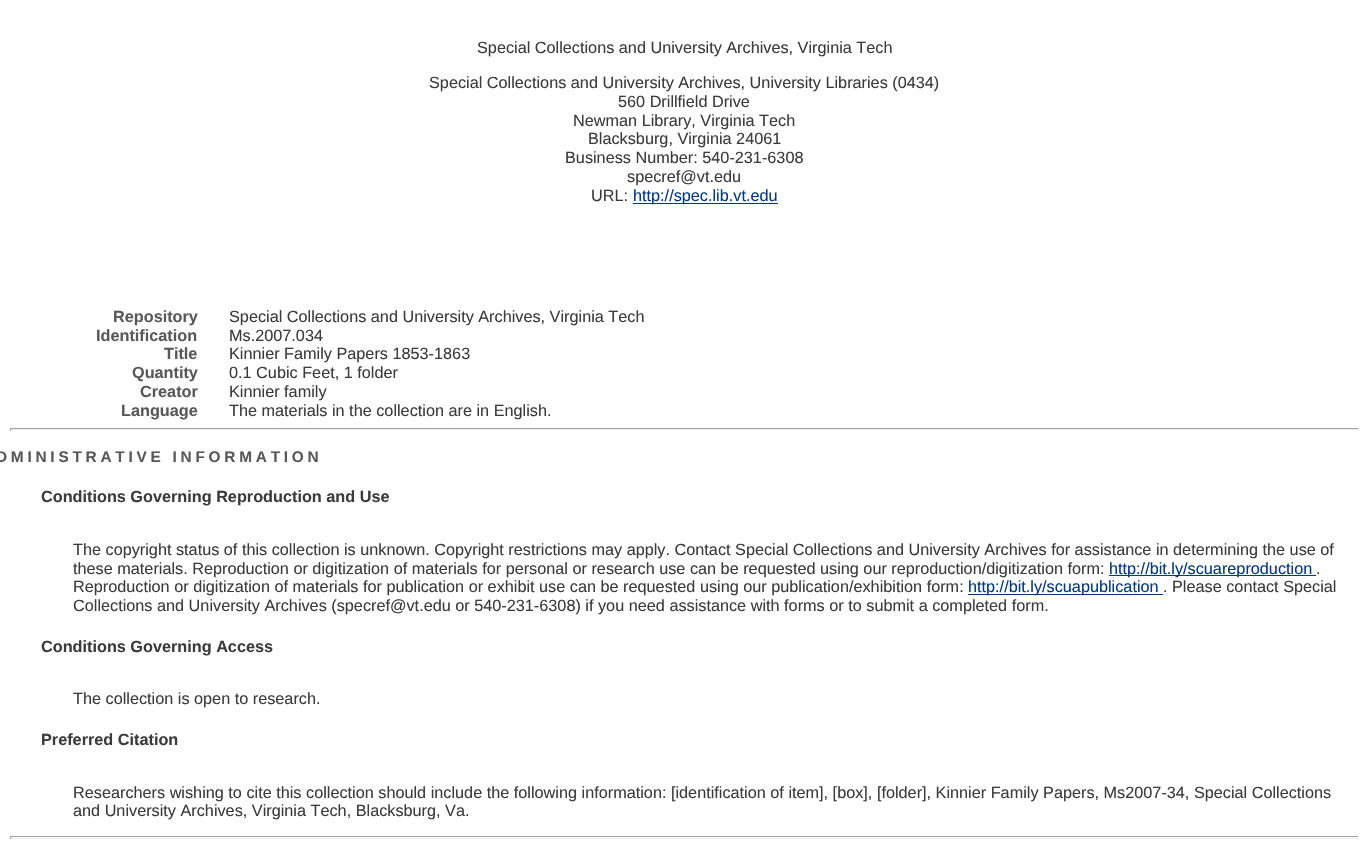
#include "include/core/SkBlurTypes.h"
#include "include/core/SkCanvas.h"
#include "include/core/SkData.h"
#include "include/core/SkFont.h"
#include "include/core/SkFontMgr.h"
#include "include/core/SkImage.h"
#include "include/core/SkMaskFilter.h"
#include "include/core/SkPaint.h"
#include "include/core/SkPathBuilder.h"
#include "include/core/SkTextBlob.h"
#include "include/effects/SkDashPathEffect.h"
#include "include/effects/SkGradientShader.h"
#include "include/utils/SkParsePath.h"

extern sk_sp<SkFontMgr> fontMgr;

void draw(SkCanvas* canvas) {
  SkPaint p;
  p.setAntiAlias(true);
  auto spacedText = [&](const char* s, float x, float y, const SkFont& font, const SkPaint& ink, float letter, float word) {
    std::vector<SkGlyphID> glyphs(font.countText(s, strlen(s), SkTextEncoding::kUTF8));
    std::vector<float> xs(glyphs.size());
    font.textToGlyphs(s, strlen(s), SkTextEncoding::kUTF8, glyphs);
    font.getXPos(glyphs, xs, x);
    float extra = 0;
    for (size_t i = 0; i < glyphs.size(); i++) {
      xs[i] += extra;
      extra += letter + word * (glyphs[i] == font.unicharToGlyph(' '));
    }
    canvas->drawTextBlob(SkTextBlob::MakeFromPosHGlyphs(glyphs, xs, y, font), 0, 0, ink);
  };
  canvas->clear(SK_ColorWHITE);
  p.setColor(SkColorSetRGB(0, 57, 132));
  canvas->drawRect(SkRect::MakeLTRB(633, 203, 778, 204), p);
  p.setColor(SkColorSetRGB(159, 159, 159));
  canvas->drawRect(SkRect::MakeLTRB(10, 428, 1359, 429), p);
  p.setColor(SkColorSetRGB(238, 238, 238));
  canvas->drawRect(SkRect::MakeLTRB(1358, 428, 1359, 431), p);
  canvas->drawRect(SkRect::MakeLTRB(10, 429, 1359, 430), p);
  p.setColor(SkColorSetRGB(159, 159, 159));
  canvas->drawRect(SkRect::MakeLTRB(10, 428, 11, 431), p);
  p.setColor(SkColorSetRGB(0, 57, 132));
  canvas->drawRect(SkRect::MakeLTRB(1109, 575, 1316, 576), p);
  canvas->drawRect(SkRect::MakeLTRB(968, 594, 1163, 595), p);
  p.setColor(SkColorSetRGB(159, 159, 159));
  canvas->drawRect(SkRect::MakeLTRB(10, 836, 1359, 837), p);
  p.setColor(SkColorSetRGB(238, 238, 238));
  canvas->drawRect(SkRect::MakeLTRB(1358, 836, 1359, 839), p);
  canvas->drawRect(SkRect::MakeLTRB(10, 838, 1359, 839), p);
  p.setColor(SkColorSetRGB(159, 159, 159));
  canvas->drawRect(SkRect::MakeLTRB(10, 836, 11, 839), p);
  SkFont font1(fontMgr->matchFamilyStyle("Liberation Sans", SkFontStyle::Normal()), 16.25f);
  font1.setSubpixel(true);
  p.setColor(SkColorSetRGB(59, 59, 59));
  canvas->drawString("Special Collections and University Archives, Virginia Tech", 477, 53, font1, p);
  canvas->drawString("Special Collections and University Archives, University Libraries (0434)", 429, 88, font1, p);
  canvas->drawString("560 Drillfield Drive", 618, 107, font1, p);
  canvas->drawString("Newman Library, Virginia Tech", 573, 126, font1, p);
  canvas->drawString("Blacksburg, Virginia 24061", 588, 144, font1, p);
  canvas->drawString("Business Number: 540-231-6308", 565, 163, font1, p);
  canvas->drawString("specref@vt.edu", 627, 182, font1, p);
  canvas->drawString("URL:", 591, 201, font1, p);
  p.setColor(SkColorSetRGB(0, 57, 132));
  canvas->drawString("http://spec.lib.vt.edu", 633, 201, font1, p);
  SkFont font2(fontMgr->matchFamilyStyle("Liberation Sans", SkFontStyle::Bold()), 16.25f);
  font2.setSubpixel(true);
  p.setColor(SkColorSetRGB(88, 88, 88));
  canvas->drawString("Repository", 113, 322, font2, p);
  p.setColor(SkColorSetRGB(59, 59, 59));
  canvas->drawString("Special Collections and University Archives, Virginia Tech", 229, 322, font1, p);
  p.setColor(SkColorSetRGB(88, 88, 88));
  canvas->drawString("Identification", 96, 341, font2, p);
  p.setColor(SkColorSetRGB(59, 59, 59));
  canvas->drawString("Ms.2007.034", 229, 341, font1, p);
  p.setColor(SkColorSetRGB(88, 88, 88));
  canvas->drawString("Title", 164, 359, font2, p);
  p.setColor(SkColorSetRGB(59, 59, 59));
  canvas->drawString("Kinnier Family Papers 1853-1863", 229, 359, font1, p);
  p.setColor(SkColorSetRGB(88, 88, 88));
  canvas->drawString("Quantity", 132, 378, font2, p);
  p.setColor(SkColorSetRGB(59, 59, 59));
  canvas->drawString("0.1 Cubic Feet, 1 folder", 229, 378, font1, p);
  p.setColor(SkColorSetRGB(88, 88, 88));
  canvas->drawString("Creator", 140, 397, font2, p);
  p.setColor(SkColorSetRGB(59, 59, 59));
  canvas->drawString("Kinnier family", 229, 397, font1, p);
  p.setColor(SkColorSetRGB(88, 88, 88));
  canvas->drawString("Language", 121, 416, font2, p);
  p.setColor(SkColorSetRGB(59, 59, 59));
  canvas->drawString("The materials in the collection are in English.", 229, 416, font1, p);
  SkFont font3(fontMgr->matchFamilyStyle("Liberation Sans", SkFontStyle::Bold()), 15.4f);
  font3.setSubpixel(true);
  p.setColor(SkColorSetRGB(88, 88, 88));
  spacedText("DMINISTRATIVE INFORMATION", -4, 462, font3, p, 3.75f, 0);
  p.setColor(SkColorSetRGB(59, 59, 59));
  canvas->drawString("Conditions Governing Reproduction and Use", 41, 502, font2, p);
  canvas->drawString("The copyright status of this collection is unknown. Copyright restrictions may apply. Contact Special Collections and University Archives for assistance in determining the use of", 73, 555, font1, p);
  canvas->drawString("these materials. Reproduction or digitization of materials for personal or research use can be requested using our reproduction/digitization form:", 73, 574, font1, p);
  p.setColor(SkColorSetRGB(0, 57, 132));
  canvas->drawString("http://bit.ly/scuareproduction", 1109, 574, font1, p);
  p.setColor(SkColorSetRGB(59, 59, 59));
  canvas->drawString(".", 1316, 574, font1, p);
  canvas->drawString("Reproduction or digitization of materials for publication or exhibit use can be requested using our publication/exhibition form:", 73, 592, font1, p);
  p.setColor(SkColorSetRGB(0, 57, 132));
  canvas->drawString("http://bit.ly/scuapublication", 968, 592, font1, p);
  p.setColor(SkColorSetRGB(59, 59, 59));
  canvas->drawString(". Please contact Special", 1163, 592, font1, p);
  canvas->drawString("Collections and University Archives (specref@vt.edu or 540-231-6308) if you need assistance with forms or to submit a completed form.", 73, 611, font1, p);
  canvas->drawString("Conditions Governing Access", 41, 652, font2, p);
  canvas->drawString("The collection is open to research.", 73, 704, font1, p);
  canvas->drawString("Preferred Citation", 41, 745, font2, p);
  canvas->drawString("Researchers wishing to cite this collection should include the following information: [identification of item], [box], [folder], Kinnier Family Papers, Ms2007-34, Special Collections", 73, 798, font1, p);
  canvas->drawString("and University Archives, Virginia Tech, Blacksburg, Va.", 73, 816, font1, p);
}
